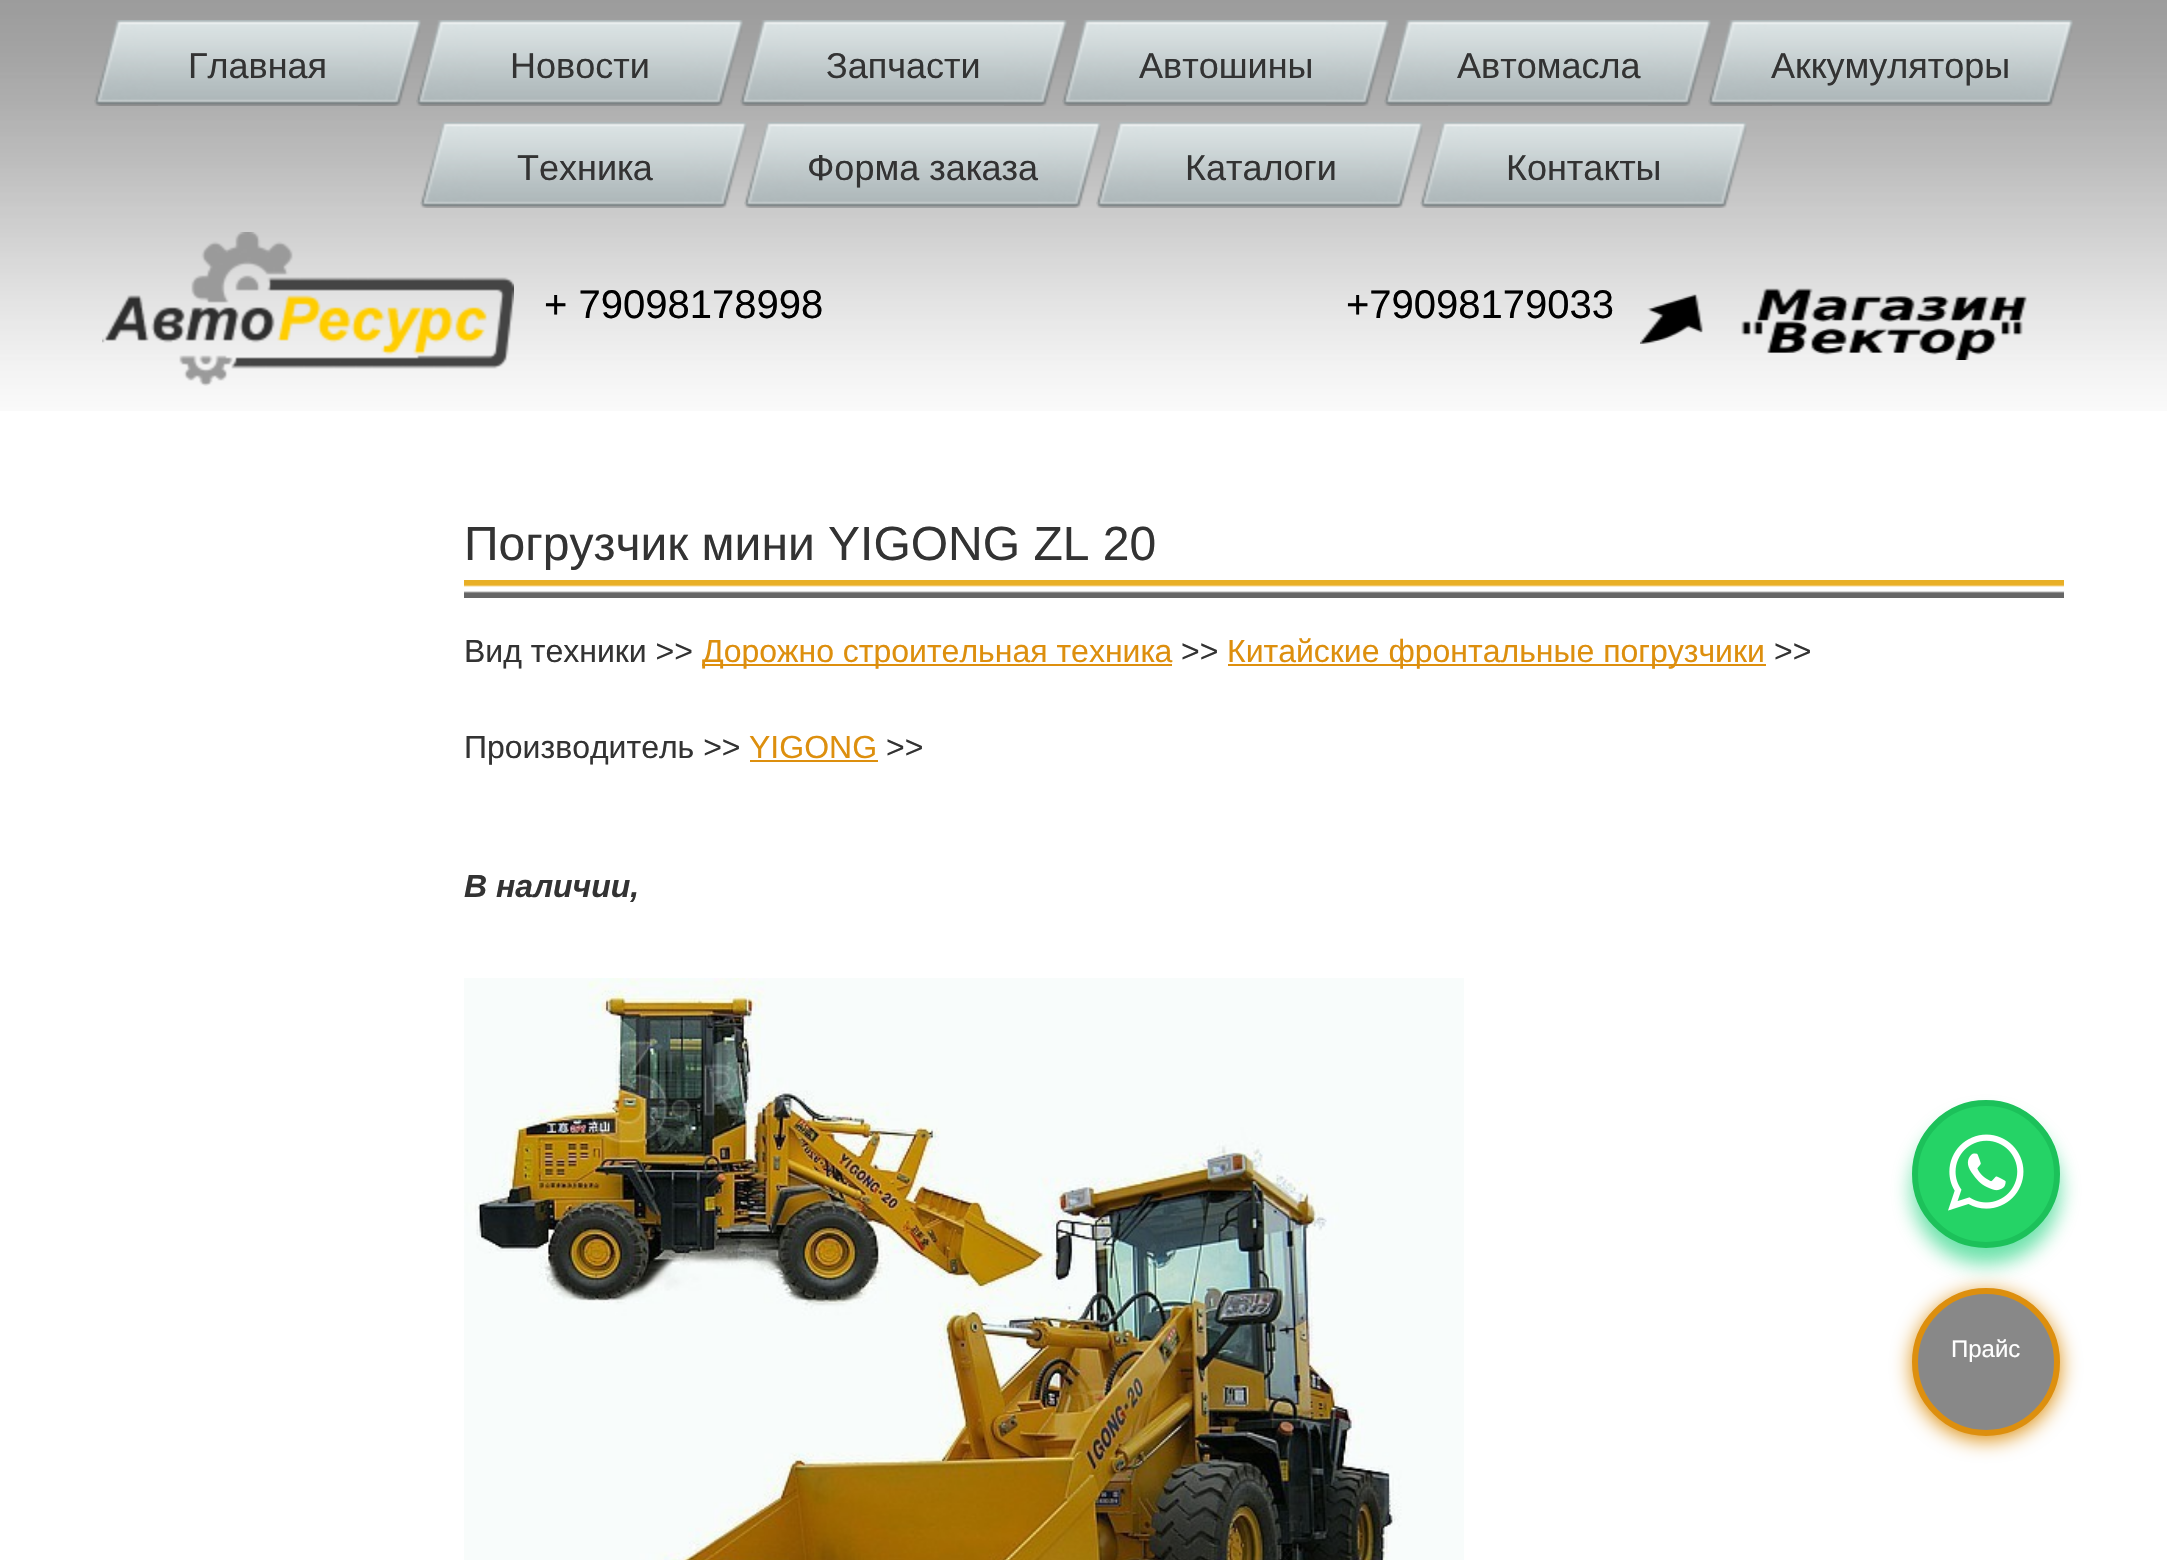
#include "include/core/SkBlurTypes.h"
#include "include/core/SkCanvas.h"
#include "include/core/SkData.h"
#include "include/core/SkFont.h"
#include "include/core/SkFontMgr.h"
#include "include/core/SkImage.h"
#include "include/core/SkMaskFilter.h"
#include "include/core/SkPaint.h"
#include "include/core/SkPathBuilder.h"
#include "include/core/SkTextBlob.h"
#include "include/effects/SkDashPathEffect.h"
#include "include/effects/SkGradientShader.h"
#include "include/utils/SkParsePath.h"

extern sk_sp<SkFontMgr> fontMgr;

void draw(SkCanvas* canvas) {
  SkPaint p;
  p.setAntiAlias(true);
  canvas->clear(SK_ColorWHITE);
  canvas->drawImageRect(SkImages::DeferredFromEncodedData(SkData::MakeFromFileName("images/1.png")), SkRect::MakeLTRB(0, 0, 2167, 411), SkSamplingOptions());
  canvas->drawImageRect(SkImages::DeferredFromEncodedData(SkData::MakeFromFileName("images/2.png")), SkRect::MakeLTRB(94, 20, 158, 106), SkSamplingOptions());
  canvas->drawImageRect(SkImages::DeferredFromEncodedData(SkData::MakeFromFileName("images/3.png")), SkRect::MakeLTRB(358, 20, 421, 106), SkSamplingOptions());
  canvas->drawImageRect(SkImages::DeferredFromEncodedData(SkData::MakeFromFileName("images/4.png")), SkRect::MakeLTRB(158, 20, 358, 106), SkSamplingOptions());
  canvas->drawImageRect(SkImages::DeferredFromEncodedData(SkData::MakeFromFileName("images/5.png")), SkRect::MakeLTRB(416, 20, 480, 106), SkSamplingOptions());
  canvas->drawImageRect(SkImages::DeferredFromEncodedData(SkData::MakeFromFileName("images/3.png")), SkRect::MakeLTRB(680, 20, 743, 106), SkSamplingOptions());
  canvas->drawImageRect(SkImages::DeferredFromEncodedData(SkData::MakeFromFileName("images/4.png")), SkRect::MakeLTRB(480, 20, 680, 106), SkSamplingOptions());
  canvas->drawImageRect(SkImages::DeferredFromEncodedData(SkData::MakeFromFileName("images/6.png")), SkRect::MakeLTRB(740, 20, 804, 106), SkSamplingOptions());
  canvas->drawImageRect(SkImages::DeferredFromEncodedData(SkData::MakeFromFileName("images/3.png")), SkRect::MakeLTRB(1004, 20, 1067, 106), SkSamplingOptions());
  canvas->drawImageRect(SkImages::DeferredFromEncodedData(SkData::MakeFromFileName("images/4.png")), SkRect::MakeLTRB(804, 20, 1004, 106), SkSamplingOptions());
  canvas->drawImageRect(SkImages::DeferredFromEncodedData(SkData::MakeFromFileName("images/5.png")), SkRect::MakeLTRB(1062, 20, 1126, 106), SkSamplingOptions());
  canvas->drawImageRect(SkImages::DeferredFromEncodedData(SkData::MakeFromFileName("images/3.png")), SkRect::MakeLTRB(1326, 20, 1389, 106), SkSamplingOptions());
  canvas->drawImageRect(SkImages::DeferredFromEncodedData(SkData::MakeFromFileName("images/4.png")), SkRect::MakeLTRB(1126, 20, 1326, 106), SkSamplingOptions());
  canvas->drawImageRect(SkImages::DeferredFromEncodedData(SkData::MakeFromFileName("images/5.png")), SkRect::MakeLTRB(1384, 20, 1448, 106), SkSamplingOptions());
  canvas->drawImageRect(SkImages::DeferredFromEncodedData(SkData::MakeFromFileName("images/3.png")), SkRect::MakeLTRB(1648, 20, 1711, 106), SkSamplingOptions());
  canvas->drawImageRect(SkImages::DeferredFromEncodedData(SkData::MakeFromFileName("images/4.png")), SkRect::MakeLTRB(1448, 20, 1648, 106), SkSamplingOptions());
  canvas->drawImageRect(SkImages::DeferredFromEncodedData(SkData::MakeFromFileName("images/6.png")), SkRect::MakeLTRB(1708, 20, 1772, 106), SkSamplingOptions());
  canvas->drawImageRect(SkImages::DeferredFromEncodedData(SkData::MakeFromFileName("images/3.png")), SkRect::MakeLTRB(2010, 20, 2073, 106), SkSamplingOptions());
  canvas->drawImageRect(SkImages::DeferredFromEncodedData(SkData::MakeFromFileName("images/7.png")), SkRect::MakeLTRB(1772, 20, 2010, 106), SkSamplingOptions());
  canvas->drawImageRect(SkImages::DeferredFromEncodedData(SkData::MakeFromFileName("images/8.png")), SkRect::MakeLTRB(420, 122, 484, 208), SkSamplingOptions());
  canvas->drawImageRect(SkImages::DeferredFromEncodedData(SkData::MakeFromFileName("images/9.png")), SkRect::MakeLTRB(684, 122, 747, 208), SkSamplingOptions());
  canvas->drawImageRect(SkImages::DeferredFromEncodedData(SkData::MakeFromFileName("images/10.png")), SkRect::MakeLTRB(484, 122, 684, 208), SkSamplingOptions());
  canvas->drawImageRect(SkImages::DeferredFromEncodedData(SkData::MakeFromFileName("images/11.png")), SkRect::MakeLTRB(744, 122, 808, 208), SkSamplingOptions());
  canvas->drawImageRect(SkImages::DeferredFromEncodedData(SkData::MakeFromFileName("images/9.png")), SkRect::MakeLTRB(1038, 122, 1101, 208), SkSamplingOptions());
  canvas->drawImageRect(SkImages::DeferredFromEncodedData(SkData::MakeFromFileName("images/12.png")), SkRect::MakeLTRB(808, 122, 1038, 208), SkSamplingOptions());
  canvas->drawImageRect(SkImages::DeferredFromEncodedData(SkData::MakeFromFileName("images/13.png")), SkRect::MakeLTRB(1096, 122, 1160, 208), SkSamplingOptions());
  canvas->drawImageRect(SkImages::DeferredFromEncodedData(SkData::MakeFromFileName("images/9.png")), SkRect::MakeLTRB(1360, 122, 1423, 208), SkSamplingOptions());
  canvas->drawImageRect(SkImages::DeferredFromEncodedData(SkData::MakeFromFileName("images/10.png")), SkRect::MakeLTRB(1160, 122, 1360, 208), SkSamplingOptions());
  canvas->drawImageRect(SkImages::DeferredFromEncodedData(SkData::MakeFromFileName("images/11.png")), SkRect::MakeLTRB(1420, 122, 1484, 208), SkSamplingOptions());
  canvas->drawImageRect(SkImages::DeferredFromEncodedData(SkData::MakeFromFileName("images/9.png")), SkRect::MakeLTRB(1684, 122, 1747, 208), SkSamplingOptions());
  canvas->drawImageRect(SkImages::DeferredFromEncodedData(SkData::MakeFromFileName("images/10.png")), SkRect::MakeLTRB(1484, 122, 1684, 208), SkSamplingOptions());
  canvas->drawImageRect(SkImages::DeferredFromEncodedData(SkData::MakeFromFileName("images/14.png")), SkRect::MakeLTRB(102, 232, 514, 386), SkSamplingOptions());
  canvas->drawImageRect(SkImages::DeferredFromEncodedData(SkData::MakeFromFileName("images/15.png")), SkRect::MakeLTRB(1640, 288, 2027, 360), SkSamplingOptions());
  canvas->drawImageRect(SkImages::DeferredFromEncodedData(SkData::MakeFromFileName("images/16.png")), SkRect::MakeLTRB(464, 580, 2064, 598), SkSamplingOptions());
  p.setColor(SkColorSetRGB(221, 143, 14));
  canvas->drawRect(SkRect::MakeLTRB(702, 664, 1172, 666), p);
  canvas->drawRect(SkRect::MakeLTRB(1228, 664, 1766, 666), p);
  canvas->drawRect(SkRect::MakeLTRB(750, 760, 878, 762), p);
  canvas->drawImageRect(SkImages::DeferredFromEncodedData(SkData::MakeFromFileName("images/17.png")), SkRect::MakeLTRB(464, 978, 1464, 1560), SkSamplingOptions());
  p.setMaskFilter(SkMaskFilter::MakeBlur(kNormal_SkBlurStyle, 10));
  canvas->drawRoundRect(SkRect::MakeLTRB(1912, 1292, 2060, 1440), 74, 74, p);
  p.setMaskFilter(nullptr);
  p.setColor(SkColorSetRGB(136, 136, 136));
  canvas->drawCircle(1986, 1362, 71, p);
  p.setStyle(SkPaint::kStroke_Style);
  p.setStrokeWidth(6);
  p.setColor(SkColorSetRGB(221, 143, 14));
  canvas->drawCircle(1986, 1362, 71, p);
  p.setStyle(SkPaint::kFill_Style);
  p.setColor(SkColorSetARGB(153, 7, 206, 112));
  p.setMaskFilter(SkMaskFilter::MakeBlur(kNormal_SkBlurStyle, 10));
  canvas->drawRoundRect(SkRect::MakeLTRB(1912, 1116, 2060, 1264), 74, 74, p);
  p.setMaskFilter(nullptr);
  p.setColor(SkColorSetRGB(37, 211, 102));
  canvas->drawCircle(1986, 1174, 71, p);
  p.setStyle(SkPaint::kStroke_Style);
  p.setColor(SkColorSetRGB(28, 193, 90));
  canvas->drawCircle(1986, 1174, 71, p);
  canvas->drawImageRect(SkImages::DeferredFromEncodedData(SkData::MakeFromFileName("images/18.png")), SkRect::MakeLTRB(1948, 1134, 2024, 1211), SkSamplingOptions());
  SkFont font1(fontMgr->matchFamilyStyle("Liberation Sans", SkFontStyle::Normal()), 36);
  font1.setSubpixel(true);
  p.setStyle(SkPaint::kFill_Style);
  p.setColor(SkColorSetRGB(51, 51, 51));
  canvas->drawString("Главная", 188, 78, font1, p);
  canvas->drawString("Новости", 510, 78, font1, p);
  canvas->drawString("Запчасти", 826, 78, font1, p);
  canvas->drawString("Автошины", 1139, 78, font1, p);
  canvas->drawString("Автомасла", 1457, 78, font1, p);
  canvas->drawString("Аккумуляторы", 1771, 78, font1, p);
  canvas->drawString("Техника", 517, 180, font1, p);
  canvas->drawString("Форма заказа", 807, 180, font1, p);
  canvas->drawString("Каталоги", 1185, 180, font1, p);
  canvas->drawString("Контакты", 1506, 180, font1, p);
  SkFont font2(fontMgr->matchFamilyStyle("Liberation Sans", SkFontStyle::Normal()), 40);
  font2.setSubpixel(true);
  p.setColor(SK_ColorBLACK);
  canvas->drawString("+ 79098178998", 544, 318, font2, p);
  canvas->drawString("+79098179033", 1346, 318, font2, p);
  SkFont font3(fontMgr->matchFamilyStyle("Liberation Sans", SkFontStyle::Normal()), 48);
  font3.setSubpixel(true);
  p.setColor(SkColorSetRGB(51, 51, 51));
  canvas->drawString("Погрузчик мини YIGONG ZL 20", 464, 560, font3, p);
  SkFont font4(fontMgr->matchFamilyStyle("Liberation Sans", SkFontStyle::Normal()), 32);
  font4.setSubpixel(true);
  canvas->drawString("Вид техники >>", 464, 662, font4, p);
  p.setColor(SkColorSetRGB(221, 143, 14));
  canvas->drawString("Дорожно строительная техника", 702, 662, font4, p);
  p.setColor(SkColorSetRGB(51, 51, 51));
  canvas->drawString(">>", 1181, 662, font4, p);
  p.setColor(SkColorSetRGB(221, 143, 14));
  canvas->drawString("Китайские фронтальные погрузчики", 1227, 662, font4, p);
  p.setColor(SkColorSetRGB(51, 51, 51));
  canvas->drawString(">>", 1774, 662, font4, p);
  canvas->drawString("Производитель >>", 464, 758, font4, p);
  p.setColor(SkColorSetRGB(221, 143, 14));
  canvas->drawString("YIGONG", 749, 758, font4, p);
  p.setColor(SkColorSetRGB(51, 51, 51));
  canvas->drawString(">>", 886, 758, font4, p);
  SkFont font5(fontMgr->matchFamilyStyle("Liberation Sans", SkFontStyle::BoldItalic()), 32);
  font5.setSubpixel(true);
  canvas->drawString("В наличии,", 464, 897, font5, p);
  SkFont font6(fontMgr->matchFamilyStyle("Liberation Sans", SkFontStyle::Normal()), 24);
  font6.setSubpixel(true);
  p.setColor(SK_ColorWHITE);
  canvas->drawString("Прайс", 1951, 1357, font6, p);
}
